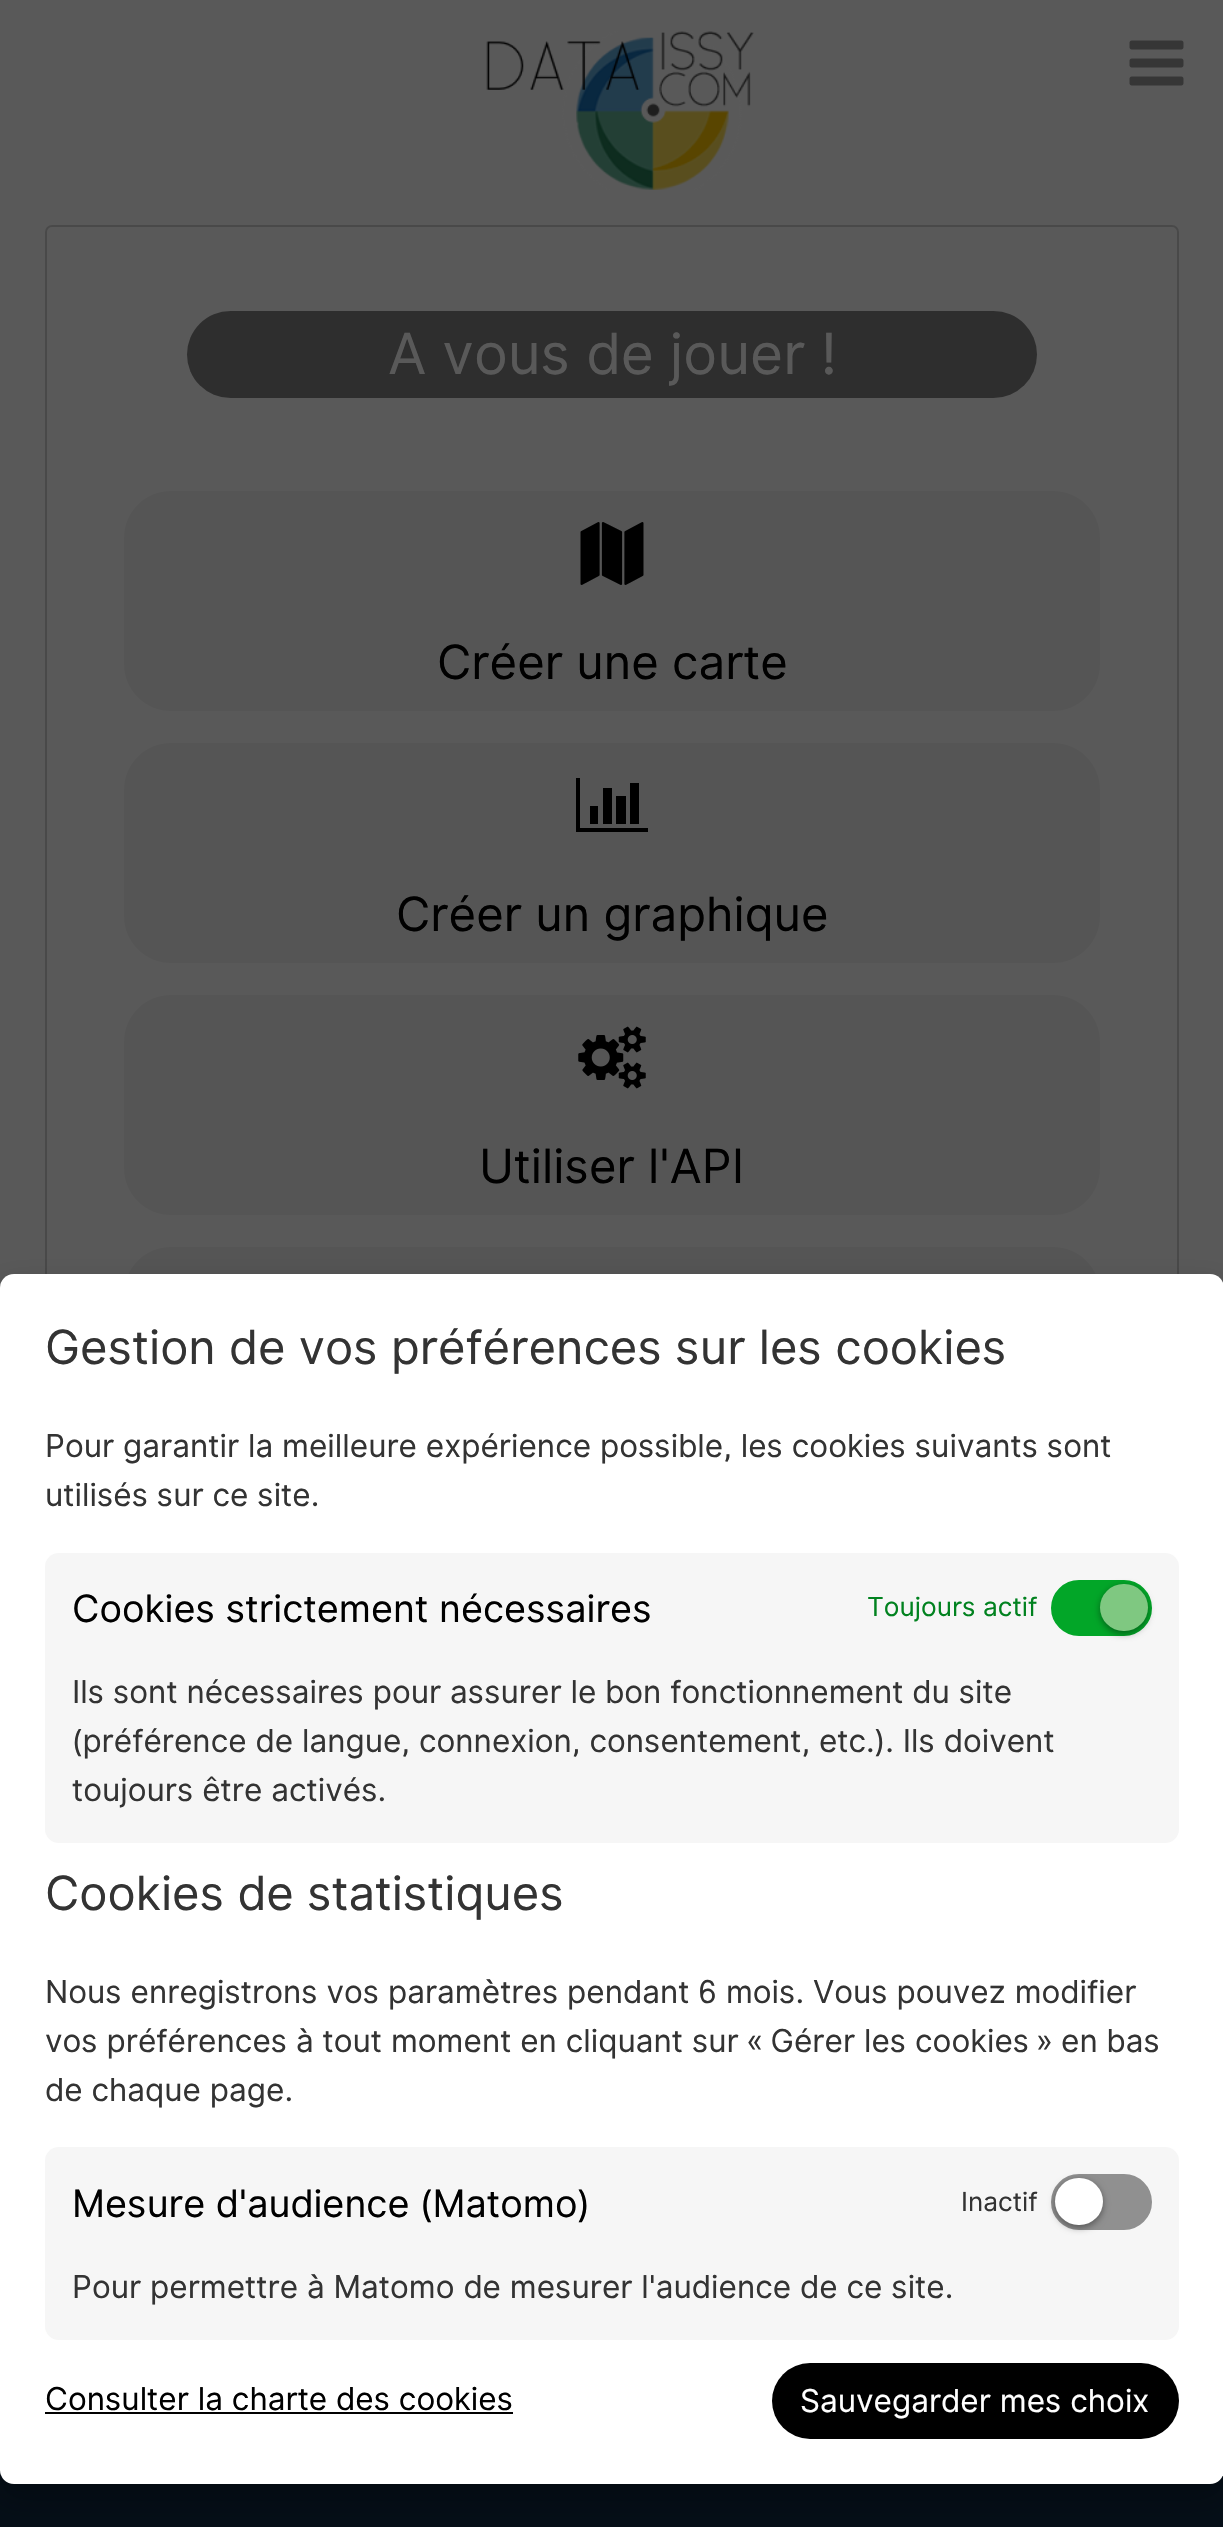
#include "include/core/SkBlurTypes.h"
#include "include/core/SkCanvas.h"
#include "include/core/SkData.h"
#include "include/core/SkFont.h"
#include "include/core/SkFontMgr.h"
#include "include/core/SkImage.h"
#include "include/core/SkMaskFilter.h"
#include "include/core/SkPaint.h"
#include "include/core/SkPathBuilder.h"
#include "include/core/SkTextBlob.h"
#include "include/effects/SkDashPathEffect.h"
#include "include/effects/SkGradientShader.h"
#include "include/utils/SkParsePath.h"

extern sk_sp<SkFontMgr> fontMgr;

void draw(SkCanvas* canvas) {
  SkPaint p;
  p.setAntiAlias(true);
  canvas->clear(SkColorSetRGB(89, 89, 89));
  canvas->drawImageRect(SkImages::DeferredFromEncodedData(SkData::MakeFromFileName("images/1.png")), SkRect::MakeLTRB(486, 31, 754, 190), SkSamplingOptions());
  canvas->drawImageRect(SkImages::DeferredFromEncodedData(SkData::MakeFromFileName("images/2.png")), SkRect::MakeLTRB(1129, 40, 1184, 86), SkSamplingOptions());
  p.setStyle(SkPaint::kStroke_Style);
  p.setStrokeWidth(2);
  p.setColor(SkColorSetRGB(73, 73, 73));
  canvas->drawRoundRect(SkRect::MakeLTRB(46, 226, 1178, 1545), 6, 6, p);
  p.setStyle(SkPaint::kFill_Style);
  p.setColor(SkColorSetRGB(46, 46, 46));
  canvas->drawRoundRect(SkRect::MakeLTRB(187, 311, 1037, 398), 43.5f, 43.5f, p);
  p.setColor(SkColorSetRGB(85, 85, 85));
  canvas->drawRoundRect(SkRect::MakeLTRB(124, 491, 1100, 711), 47, 47, p);
  canvas->drawImageRect(SkImages::DeferredFromEncodedData(SkData::MakeFromFileName("images/3.png")), SkRect::MakeLTRB(580, 522, 644, 585), SkSamplingOptions());
  canvas->drawRoundRect(SkRect::MakeLTRB(124, 743, 1100, 963), 47, 47, p);
  p.setColor(SK_ColorBLACK);
  canvas->drawPath(SkPathBuilder().moveTo(598, 806).lineTo(598, 824).lineTo(590, 824).lineTo(590, 806).close().moveTo(612, 788).lineTo(612, 824).lineTo(603, 824).lineTo(603, 788).close().moveTo(648, 828).lineTo(648, 832).lineTo(576, 832).lineTo(576, 778).lineTo(580, 778).lineTo(580, 828).close().moveTo(626, 796).lineTo(626, 824).lineTo(616, 824).lineTo(616, 796).close().moveTo(639, 783).lineTo(639, 824).lineTo(630, 824).lineTo(630, 783).close().detach(), p);
  p.setColor(SkColorSetRGB(85, 85, 85));
  canvas->drawRoundRect(SkRect::MakeLTRB(124, 995, 1100, 1215), 47, 47, p);
  canvas->drawImageRect(SkImages::DeferredFromEncodedData(SkData::MakeFromFileName("images/4.png")), SkRect::MakeLTRB(578, 1026, 646, 1089), SkSamplingOptions());
  canvas->drawRoundRect(SkRect::MakeLTRB(124, 1247, 1100, 1467), 47, 47, p);
  p.setColor(SkColorSetRGB(5, 14, 23));
  canvas->drawRect(SkRect::MakeLTRB(0, 2470, 1223, 2527), p);
  p.setColor(SkColorSetARGB(64, 0, 0, 0));
  p.setMaskFilter(SkMaskFilter::MakeBlur(kNormal_SkBlurStyle, 14.5f));
  canvas->drawRoundRect(SkRect::MakeLTRB(0, 1287, 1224, 2498), 14, 14, p);
  p.setMaskFilter(nullptr);
  p.setColor(SK_ColorWHITE);
  canvas->drawRoundRect(SkRect::MakeLTRB(0, 1274, 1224, 2484), 14, 14, p);
  p.setColor(SkColorSetRGB(246, 246, 246));
  canvas->drawRoundRect(SkRect::MakeLTRB(45, 1553, 1179, 1843), 14, 14, p);
  p.setColor(SkColorSetRGB(2, 166, 40));
  canvas->drawRoundRect(SkRect::MakeLTRB(1053.5f, 1582.5f, 1149.5f, 1633.5f), 25.5f, 25.5f, p);
  p.setStyle(SkPaint::kStroke_Style);
  p.setStrokeWidth(5);
  canvas->drawRoundRect(SkRect::MakeLTRB(1053.5f, 1582.5f, 1149.5f, 1633.5f), 25.5f, 25.5f, p);
  p.setStyle(SkPaint::kFill_Style);
  p.setColor(SkColorSetARGB(102, 0, 0, 0));
  p.setMaskFilter(SkMaskFilter::MakeBlur(kNormal_SkBlurStyle, 3.5f));
  canvas->drawRoundRect(SkRect::MakeLTRB(1100, 1586, 1148, 1634), 24, 24, p);
  p.setMaskFilter(nullptr);
  p.setColor(SkColorSetRGB(127, 200, 129));
  canvas->drawRoundRect(SkRect::MakeLTRB(1100, 1584, 1148, 1631), 23.5f, 23.5f, p);
  p.setColor(SkColorSetRGB(246, 246, 246));
  canvas->drawRoundRect(SkRect::MakeLTRB(45, 2147, 1179, 2340), 14, 14, p);
  p.setColor(SkColorSetRGB(144, 144, 144));
  canvas->drawRoundRect(SkRect::MakeLTRB(1053.5f, 2176.5f, 1149.5f, 2227.5f), 25.5f, 25.5f, p);
  p.setStyle(SkPaint::kStroke_Style);
  canvas->drawRoundRect(SkRect::MakeLTRB(1053.5f, 2176.5f, 1149.5f, 2227.5f), 25.5f, 25.5f, p);
  p.setStyle(SkPaint::kFill_Style);
  p.setColor(SkColorSetARGB(102, 0, 0, 0));
  p.setMaskFilter(SkMaskFilter::MakeBlur(kNormal_SkBlurStyle, 3.5f));
  canvas->drawRoundRect(SkRect::MakeLTRB(1055, 2180, 1103, 2228), 24, 24, p);
  p.setMaskFilter(nullptr);
  p.setColor(SK_ColorWHITE);
  canvas->drawRoundRect(SkRect::MakeLTRB(1055, 2178, 1103, 2225), 23.5f, 23.5f, p);
  p.setColor(SK_ColorBLACK);
  canvas->drawRect(SkRect::MakeLTRB(45, 2412, 513, 2414), p);
  canvas->drawRoundRect(SkRect::MakeLTRB(772, 2363, 1179, 2439), 38, 38, p);
  SkFont font1(fontMgr->matchFamilyStyle("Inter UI", SkFontStyle::Normal()), 56.75f);
  font1.setSubpixel(true);
  p.setColor(SkColorSetRGB(89, 89, 89));
  canvas->drawString("A vous de jouer !", 388, 374, font1, p);
  SkFont font2(fontMgr->matchFamilyStyle("Inter UI", SkFontStyle::Normal()), 47.25f);
  font2.setSubpixel(true);
  p.setColor(SK_ColorBLACK);
  canvas->drawString("Créer une carte", 437, 679, font2, p);
  canvas->drawString("Créer un graphique", 396, 931, font2, p);
  canvas->drawString("Utiliser l'API", 479, 1183, font2, p);
  p.setColor(SkColorSetRGB(51, 51, 51));
  canvas->drawString("Gestion de vos préférences sur les cookies", 45, 1364, font2, p);
  SkFont font3(fontMgr->matchFamilyStyle("Inter UI", SkFontStyle::Normal()), 31.5f);
  font3.setSubpixel(true);
  canvas->drawString("Pour garantir la meilleure expérience possible, les cookies suivants sont", 45, 1457, font3, p);
  canvas->drawString("utilisés sur ce site.", 45, 1506, font3, p);
  SkFont font4(fontMgr->matchFamilyStyle("Inter UI", SkFontStyle::Normal()), 37.75f);
  font4.setSubpixel(true);
  p.setColor(SK_ColorBLACK);
  canvas->drawString("Cookies strictement nécessaires", 72, 1622, font4, p);
  SkFont font5(fontMgr->matchFamilyStyle("Inter UI", SkFontStyle::Normal()), 26.25f);
  font5.setSubpixel(true);
  p.setColor(SkColorSetRGB(1, 130, 31));
  canvas->drawString("Toujours actif", 867, 1616, font5, p);
  p.setColor(SkColorSetRGB(51, 51, 51));
  canvas->drawString("Ils sont nécessaires pour assurer le bon fonctionnement du site", 72, 1703, font3, p);
  canvas->drawString("(préférence de langue, connexion, consentement, etc.). Ils doivent", 72, 1752, font3, p);
  canvas->drawString("toujours être activés.", 72, 1801, font3, p);
  canvas->drawString("Cookies de statistiques", 45, 1910, font2, p);
  canvas->drawString("Nous enregistrons vos paramètres pendant 6 mois. Vous pouvez modifier", 45, 2003, font3, p);
  canvas->drawString("vos préférences à tout moment en cliquant sur « Gérer les cookies » en bas", 45, 2052, font3, p);
  canvas->drawString("de chaque page.", 45, 2101, font3, p);
  p.setColor(SK_ColorBLACK);
  canvas->drawString("Mesure d'audience (Matomo)", 72, 2217, font4, p);
  p.setColor(SkColorSetRGB(51, 51, 51));
  canvas->drawString("Inactif", 961, 2211, font5, p);
  canvas->drawString("Pour permettre à Matomo de mesurer l'audience de ce site.", 72, 2298, font3, p);
  p.setColor(SK_ColorBLACK);
  canvas->drawString("Consulter la charte des cookies", 45, 2410, font3, p);
  p.setColor(SK_ColorWHITE);
  canvas->drawString("Sauvegarder mes choix", 800, 2412, font3, p);
}
